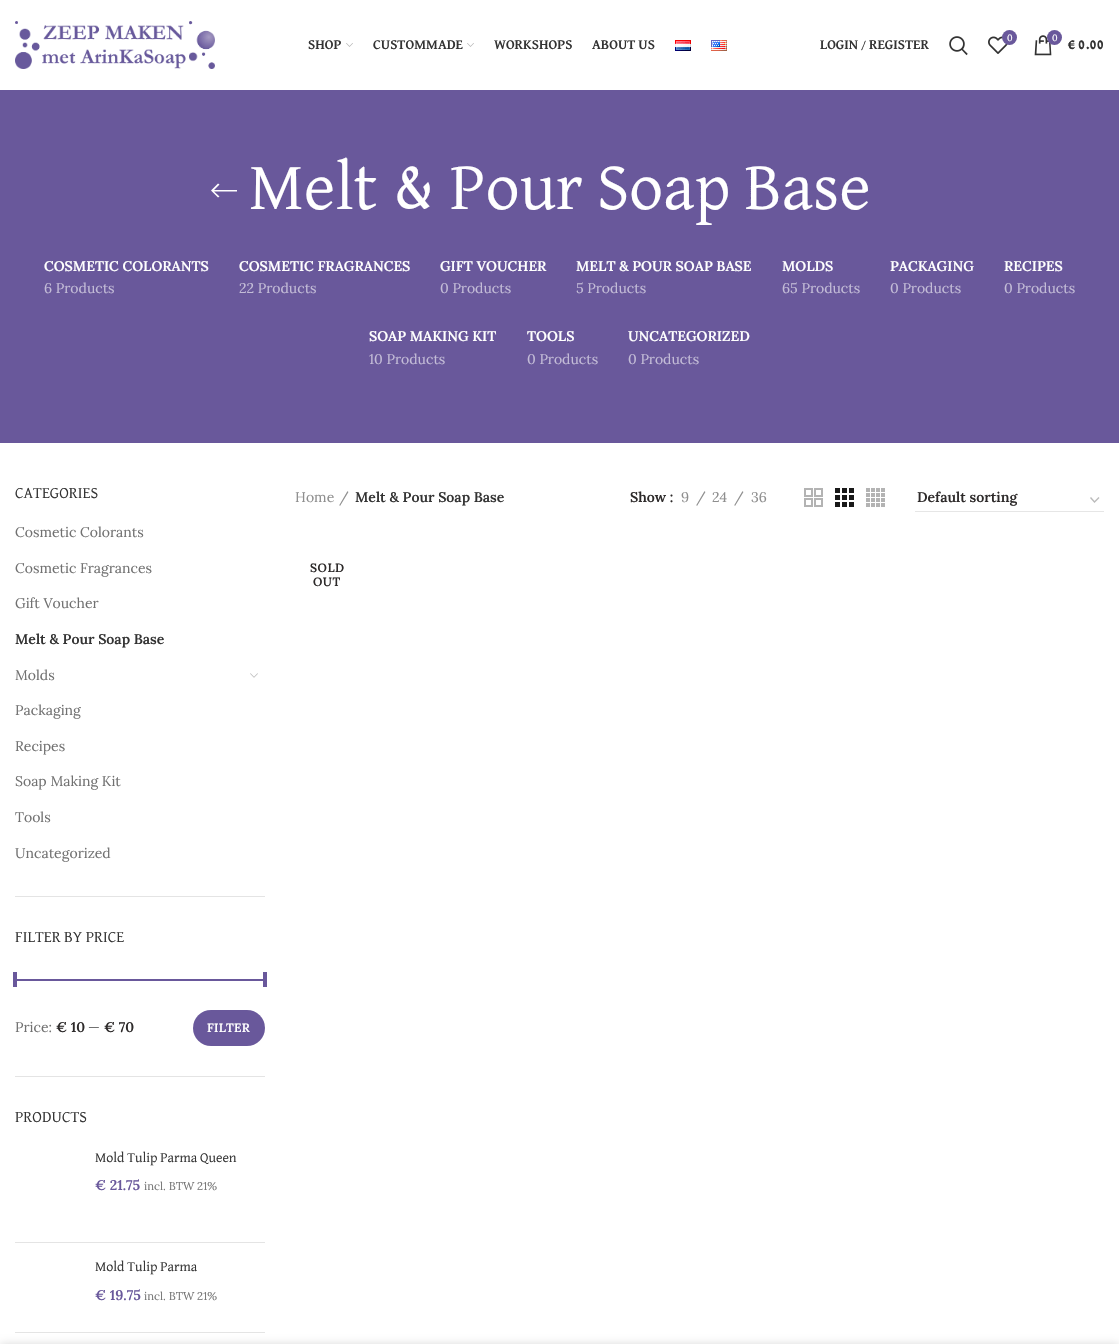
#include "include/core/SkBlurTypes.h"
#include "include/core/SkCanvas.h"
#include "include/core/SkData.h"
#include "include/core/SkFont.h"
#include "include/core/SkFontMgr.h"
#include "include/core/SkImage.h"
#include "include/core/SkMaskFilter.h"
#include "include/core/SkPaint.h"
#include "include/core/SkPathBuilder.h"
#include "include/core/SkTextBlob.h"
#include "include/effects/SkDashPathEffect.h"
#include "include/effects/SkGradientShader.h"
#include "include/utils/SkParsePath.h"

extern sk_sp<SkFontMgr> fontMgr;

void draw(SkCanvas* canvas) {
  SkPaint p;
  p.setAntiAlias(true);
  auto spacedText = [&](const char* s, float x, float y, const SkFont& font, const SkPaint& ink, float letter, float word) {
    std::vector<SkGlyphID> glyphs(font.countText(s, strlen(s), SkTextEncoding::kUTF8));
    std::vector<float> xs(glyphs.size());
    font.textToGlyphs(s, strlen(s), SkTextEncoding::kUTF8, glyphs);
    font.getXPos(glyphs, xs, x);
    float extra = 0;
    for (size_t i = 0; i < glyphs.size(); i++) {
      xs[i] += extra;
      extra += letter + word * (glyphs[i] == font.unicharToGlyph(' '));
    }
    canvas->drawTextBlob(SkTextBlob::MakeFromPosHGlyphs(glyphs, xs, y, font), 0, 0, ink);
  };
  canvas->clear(SK_ColorWHITE);
  canvas->drawImageRect(SkImages::DeferredFromEncodedData(SkData::MakeFromFileName("images/1.png")), SkRect::MakeLTRB(15, 21, 215, 69), SkSamplingOptions());
  canvas->drawImageRect(SkImages::DeferredFromEncodedData(SkData::MakeFromFileName("images/2.png")), SkRect::MakeLTRB(346, 43, 353, 47), SkSamplingOptions());
  canvas->drawImageRect(SkImages::DeferredFromEncodedData(SkData::MakeFromFileName("images/2.png")), SkRect::MakeLTRB(467, 43, 474, 47), SkSamplingOptions());
  canvas->drawImageRect(SkImages::DeferredFromEncodedData(SkData::MakeFromFileName("images/3.png")), SkRect::MakeLTRB(675, 40, 691, 51), SkSamplingOptions());
  canvas->drawImageRect(SkImages::DeferredFromEncodedData(SkData::MakeFromFileName("images/4.png")), SkRect::MakeLTRB(711, 40, 727, 51), SkSamplingOptions());
  canvas->drawImageRect(SkImages::DeferredFromEncodedData(SkData::MakeFromFileName("images/5.png")), SkRect::MakeLTRB(949, 36, 968, 56), SkSamplingOptions());
  canvas->drawImageRect(SkImages::DeferredFromEncodedData(SkData::MakeFromFileName("images/6.png")), SkRect::MakeLTRB(988, 36, 1008, 54), SkSamplingOptions());
  p.setColor(SkColorSetRGB(105, 88, 155));
  canvas->drawCircle(1009.5f, 37.5f, 7.5f, p);
  canvas->drawImageRect(SkImages::DeferredFromEncodedData(SkData::MakeFromFileName("images/7.png")), SkRect::MakeLTRB(1034, 35, 1052, 56), SkSamplingOptions());
  canvas->drawCircle(1054.5f, 37.5f, 7.5f, p);
  canvas->drawRect(SkRect::MakeLTRB(0, 90, 1119, 443), p);
  p.setColor(SK_ColorWHITE);
  canvas->drawPath(SkPathBuilder().moveTo(237, 190).lineTo(237, 191.5f).lineTo(214, 191.5f).lineTo(219.5f, 196.5f).lineTo(218, 197.5f).lineTo(211, 190.5f).lineTo(218, 183.5f).lineTo(219.5f, 184.5f).lineTo(214, 190).close().detach(), p);
  p.setColor(SkColorSetRGB(228, 228, 228));
  canvas->drawRect(SkRect::MakeLTRB(15, 896, 265, 897), p);
  canvas->drawImageRect(SkImages::DeferredFromEncodedData(SkData::MakeFromFileName("images/8.png")), SkRect::MakeLTRB(250, 673, 258, 678), SkSamplingOptions());
  canvas->drawRect(SkRect::MakeLTRB(15, 1076, 265, 1077), p);
  p.setColor(SkColorSetRGB(105, 88, 155));
  canvas->drawRect(SkRect::MakeLTRB(15, 979, 265, 981), p);
  canvas->drawRect(SkRect::MakeLTRB(13, 972, 17, 987), p);
  canvas->drawRect(SkRect::MakeLTRB(263, 972, 267, 987), p);
  canvas->drawRoundRect(SkRect::MakeLTRB(193, 1010, 265, 1046), 18, 18, p);
  p.setColor(SkColorSetRGB(228, 228, 228));
  canvas->drawRect(SkRect::MakeLTRB(15, 1242, 265, 1243), p);
  canvas->drawRect(SkRect::MakeLTRB(15, 1332, 265, 1333), p);
  canvas->drawImageRect(SkImages::DeferredFromEncodedData(SkData::MakeFromFileName("images/9.png")), SkRect::MakeLTRB(804, 488, 823, 507), SkSamplingOptions());
  canvas->drawImageRect(SkImages::DeferredFromEncodedData(SkData::MakeFromFileName("images/10.png")), SkRect::MakeLTRB(835, 488, 854, 507), SkSamplingOptions());
  canvas->drawImageRect(SkImages::DeferredFromEncodedData(SkData::MakeFromFileName("images/11.png")), SkRect::MakeLTRB(866, 488, 885, 507), SkSamplingOptions());
  p.setStyle(SkPaint::kStroke_Style);
  p.setStrokeWidth(1.4f);
  p.setColor(SkColorSetRGB(187, 187, 187));
  canvas->drawPath(SkPathBuilder().moveTo(1090.5f, 497.5f).lineTo(1094.5f, 502).lineTo(1099, 497.5f).detach(), p);
  p.setStyle(SkPaint::kFill_Style);
  p.setColor(SkColorSetRGB(230, 230, 230));
  canvas->drawRect(SkRect::MakeLTRB(915, 511, 1104, 512), p);
  p.setColor(SkColorSetARGB(36, 0, 0, 0));
  p.setMaskFilter(SkMaskFilter::MakeBlur(kNormal_SkBlurStyle, 4.5f));
  canvas->drawRect(SkRect::MakeLTRB(0, 1344, 1119, 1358), p);
  p.setMaskFilter(nullptr);
  SkFont font1(fontMgr->matchFamilyStyle("David Libre", SkFontStyle::Bold()), 14);
  font1.setSubpixel(true);
  p.setColor(SkColorSetRGB(51, 51, 51));
  canvas->drawString("SHOP", 308, 49, font1, p);
  canvas->drawString("CUSTOMMADE", 373, 49, font1, p);
  canvas->drawString("WORKSHOPS", 494, 49, font1, p);
  canvas->drawString("ABOUT US", 592, 49, font1, p);
  canvas->drawString("LOGIN / REGISTER", 820, 49, font1, p);
  SkFont font2(fontMgr->matchFamilyStyle("Lora", SkFontStyle::Normal()), 9);
  font2.setSubpixel(true);
  p.setColor(SK_ColorWHITE);
  canvas->drawString("0", 1007, 41, font2, p);
  canvas->drawString("0", 1052, 41, font2, p);
  p.setColor(SkColorSetRGB(51, 51, 51));
  canvas->drawString("€ 0.00", 1068, 49, font1, p);
  SkFont font3(fontMgr->matchFamilyStyle("David Libre", SkFontStyle::Normal()), 68);
  font3.setSubpixel(true);
  p.setColor(SK_ColorWHITE);
  canvas->drawString("Melt & Pour Soap Base", 249, 209, font3, p);
  SkFont font4(fontMgr->matchFamilyStyle("Lora", SkFontStyle(600, SkFontStyle::kNormal_Width, SkFontStyle::kUpright_Slant)), 14);
  font4.setSubpixel(true);
  canvas->drawString("COSMETIC COLORANTS", 44, 271, font4, p);
  SkFont font5(fontMgr->matchFamilyStyle("Lora", SkFontStyle::Normal()), 14);
  font5.setSubpixel(true);
  p.setColor(SkColorSetRGB(195, 188, 215));
  canvas->drawString("6 Products", 44, 293, font5, p);
  p.setColor(SK_ColorWHITE);
  canvas->drawString("COSMETIC FRAGRANCES", 239, 271, font4, p);
  p.setColor(SkColorSetRGB(195, 188, 215));
  canvas->drawString("22 Products", 239, 293, font5, p);
  p.setColor(SK_ColorWHITE);
  canvas->drawString("GIFT VOUCHER", 440, 271, font4, p);
  p.setColor(SkColorSetRGB(195, 188, 215));
  canvas->drawString("0 Products", 440, 293, font5, p);
  p.setColor(SK_ColorWHITE);
  canvas->drawString("MELT & POUR SOAP BASE", 576, 271, font4, p);
  p.setColor(SkColorSetRGB(195, 188, 215));
  canvas->drawString("5 Products", 576, 293, font5, p);
  p.setColor(SK_ColorWHITE);
  canvas->drawString("MOLDS", 782, 271, font4, p);
  p.setColor(SkColorSetRGB(195, 188, 215));
  canvas->drawString("65 Products", 782, 293, font5, p);
  p.setColor(SK_ColorWHITE);
  canvas->drawString("PACKAGING", 890, 271, font4, p);
  p.setColor(SkColorSetRGB(195, 188, 215));
  canvas->drawString("0 Products", 890, 293, font5, p);
  p.setColor(SK_ColorWHITE);
  canvas->drawString("RECIPES", 1004, 271, font4, p);
  p.setColor(SkColorSetRGB(195, 188, 215));
  canvas->drawString("0 Products", 1004, 293, font5, p);
  p.setColor(SK_ColorWHITE);
  canvas->drawString("SOAP MAKING KIT", 369, 341, font4, p);
  p.setColor(SkColorSetRGB(195, 188, 215));
  canvas->drawString("10 Products", 369, 364, font5, p);
  p.setColor(SK_ColorWHITE);
  canvas->drawString("TOOLS", 527, 341, font4, p);
  p.setColor(SkColorSetRGB(195, 188, 215));
  canvas->drawString("0 Products", 527, 364, font5, p);
  p.setColor(SK_ColorWHITE);
  canvas->drawString("UNCATEGORIZED", 628, 341, font4, p);
  p.setColor(SkColorSetRGB(195, 188, 215));
  canvas->drawString("0 Products", 628, 364, font5, p);
  SkFont font6(fontMgr->matchFamilyStyle("David Libre", SkFontStyle::Normal()), 16);
  font6.setSubpixel(true);
  p.setColor(SkColorSetRGB(51, 51, 51));
  canvas->drawString("CATEGORIES", 15, 498, font6, p);
  p.setColor(SkColorSetRGB(113, 113, 113));
  canvas->drawString("Cosmetic Colorants", 15, 537, font5, p);
  canvas->drawString("Cosmetic Fragrances", 15, 573, font5, p);
  canvas->drawString("Gift Voucher", 15, 608, font5, p);
  p.setColor(SkColorSetRGB(51, 51, 51));
  canvas->drawString("Melt & Pour Soap Base", 15, 644, font4, p);
  p.setColor(SkColorSetRGB(113, 113, 113));
  canvas->drawString("Molds", 15, 680, font5, p);
  canvas->drawString("Packaging", 15, 715, font5, p);
  canvas->drawString("Recipes", 15, 751, font5, p);
  canvas->drawString("Soap Making Kit", 15, 786, font5, p);
  canvas->drawString("Tools", 15, 822, font5, p);
  canvas->drawString("Uncategorized", 15, 858, font5, p);
  p.setColor(SkColorSetRGB(51, 51, 51));
  canvas->drawString("FILTER BY PRICE", 15, 942, font6, p);
  p.setColor(SkColorSetRGB(113, 113, 113));
  canvas->drawString("Price:", 15, 1032, font5, p);
  p.setColor(SkColorSetRGB(45, 42, 42));
  canvas->drawString("€ 10", 56, 1032, font4, p);
  p.setColor(SkColorSetRGB(113, 113, 113));
  canvas->drawString("—", 88, 1032, font5, p);
  p.setColor(SkColorSetRGB(45, 42, 42));
  canvas->drawString("€ 70", 104, 1032, font4, p);
  SkFont font7(fontMgr->matchFamilyStyle("Lora", SkFontStyle(600, SkFontStyle::kNormal_Width, SkFontStyle::kUpright_Slant)), 12);
  font7.setSubpixel(true);
  p.setColor(SK_ColorWHITE);
  spacedText("FILTER", 207, 1032, font7, p, 0.25f, 0);
  p.setColor(SkColorSetRGB(51, 51, 51));
  canvas->drawString("PRODUCTS", 15, 1122, font6, p);
  SkFont font8(fontMgr->matchFamilyStyle("David Libre", SkFontStyle::Normal()), 14);
  font8.setSubpixel(true);
  canvas->drawString("Mold Tulip Parma Queen", 95, 1162, font8, p);
  p.setColor(SkColorSetRGB(105, 88, 155));
  canvas->drawString("€ 21.75", 95, 1190, font4, p);
  SkFont font9(fontMgr->matchFamilyStyle("Lora", SkFontStyle::Normal()), 11.25f);
  font9.setSubpixel(true);
  p.setColor(SkColorSetRGB(119, 119, 119));
  canvas->drawString("incl. BTW 21%", 144, 1190, font9, p);
  p.setColor(SkColorSetRGB(51, 51, 51));
  canvas->drawString("Mold Tulip Parma", 95, 1271, font8, p);
  p.setColor(SkColorSetRGB(105, 88, 155));
  canvas->drawString("€ 19.75", 95, 1300, font4, p);
  p.setColor(SkColorSetRGB(119, 119, 119));
  canvas->drawString("incl. BTW 21%", 144, 1300, font9, p);
  p.setColor(SkColorSetRGB(142, 142, 142));
  canvas->drawString("Home", 295, 502, font5, p);
  canvas->drawString("/", 339, 502, font5, p);
  p.setColor(SkColorSetRGB(51, 51, 51));
  canvas->drawString("Melt & Pour Soap Base", 355, 502, font4, p);
  p.setColor(SkColorSetRGB(45, 42, 42));
  canvas->drawString("Show :", 630, 502, font4, p);
  p.setColor(SkColorSetRGB(142, 142, 142));
  canvas->drawString("9", 681, 502, font5, p);
  canvas->drawString("/", 696, 502, font5, p);
  canvas->drawString("24", 712, 502, font5, p);
  canvas->drawString("/", 734, 502, font5, p);
  canvas->drawString("36", 751, 502, font5, p);
  p.setColor(SkColorSetRGB(45, 42, 42));
  canvas->drawString("Default sorting", 917, 502, font4, p);
  spacedText("SOLD", 310, 572, font7, p, 0.5f, 0);
  spacedText("OUT", 313, 586, font7, p, 0.5f, 0);
}
